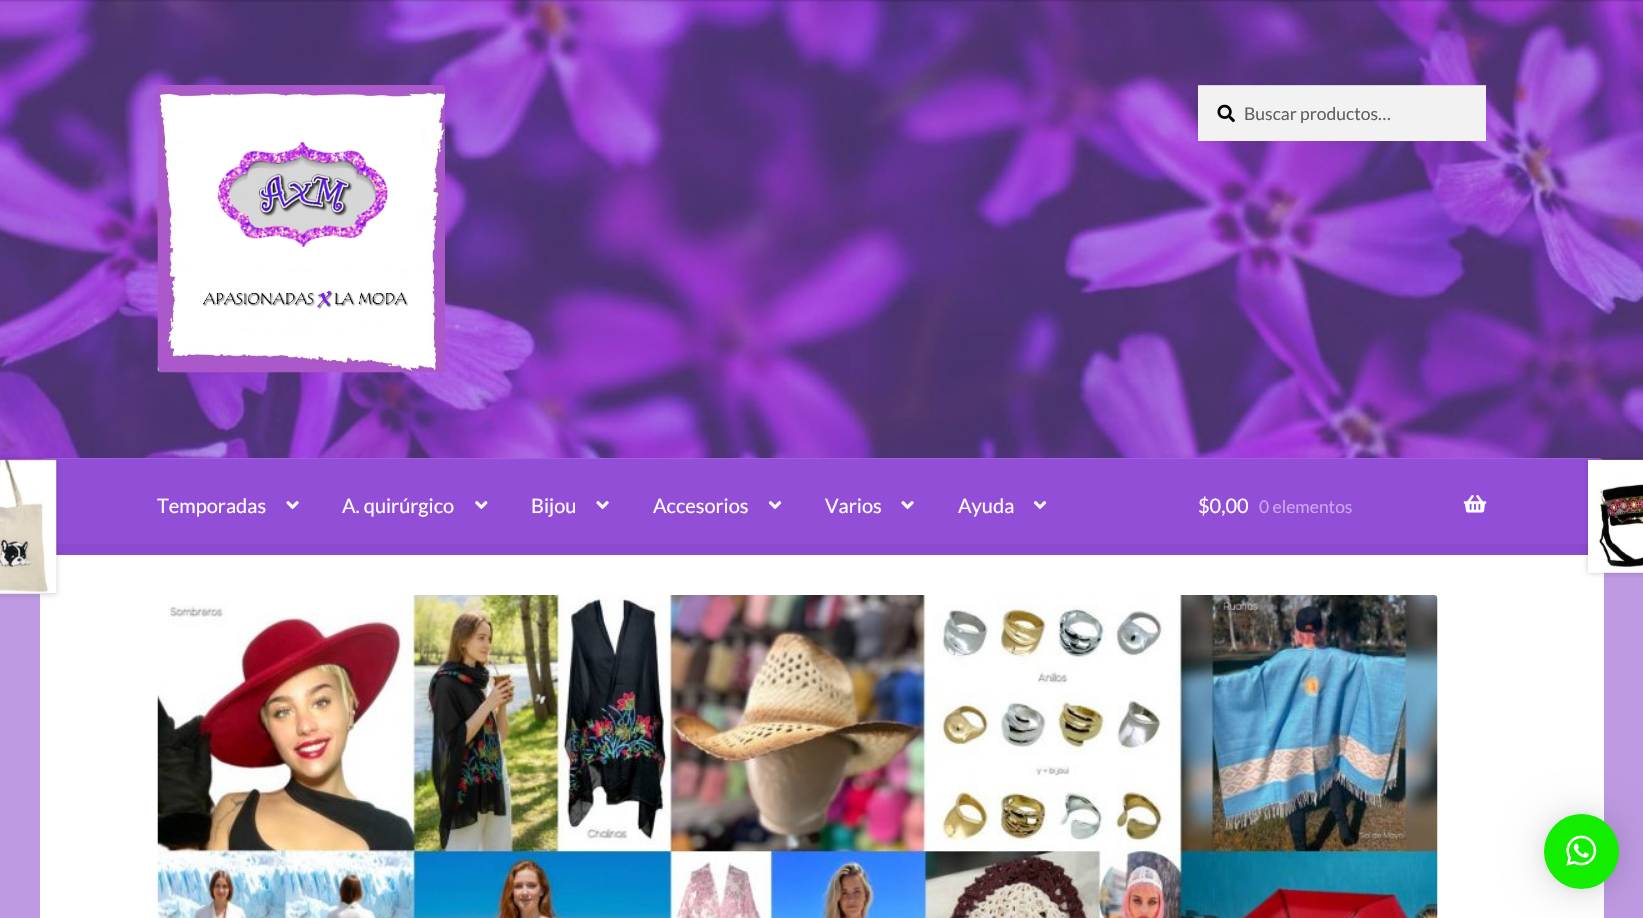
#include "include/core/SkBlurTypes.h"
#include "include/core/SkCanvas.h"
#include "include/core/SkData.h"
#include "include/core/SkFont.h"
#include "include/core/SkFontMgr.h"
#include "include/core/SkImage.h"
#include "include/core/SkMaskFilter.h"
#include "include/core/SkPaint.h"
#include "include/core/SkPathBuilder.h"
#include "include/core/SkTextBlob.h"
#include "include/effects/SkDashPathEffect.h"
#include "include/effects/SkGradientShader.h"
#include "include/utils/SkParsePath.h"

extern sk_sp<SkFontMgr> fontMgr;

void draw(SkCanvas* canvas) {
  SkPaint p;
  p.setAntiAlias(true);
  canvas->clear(SkColorSetRGB(190, 154, 226));
  canvas->drawImageRect(SkImages::DeferredFromEncodedData(SkData::MakeFromFileName("images/1.png")), SkRect::MakeLTRB(0, 0, 1643, 460), SkSamplingOptions());
  p.setColor(SkColorSetARGB(51, 0, 0, 0));
  p.setMaskFilter(SkMaskFilter::MakeBlur(kNormal_SkBlurStyle, 1));
  canvas->drawRect(SkRect::MakeLTRB(0, -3, 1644, 1), p);
  p.setMaskFilter(nullptr);
  canvas->drawImageRect(SkImages::DeferredFromEncodedData(SkData::MakeFromFileName("images/2.png")), SkRect::MakeLTRB(157, 85, 445, 373), SkSamplingOptions());
  p.setColor(SkColorSetRGB(242, 242, 242));
  canvas->drawRect(SkRect::MakeLTRB(1198, 86, 1486, 141), p);
  canvas->drawImageRect(SkImages::DeferredFromEncodedData(SkData::MakeFromFileName("images/3.png")), SkRect::MakeLTRB(1217, 104, 1235, 123), SkSamplingOptions());
  p.setColor(SkColorSetRGB(212, 212, 212));
  canvas->drawRect(SkRect::MakeLTRB(1198, 85, 1486, 86), p);
  p.setColor(SkColorSetRGB(147, 78, 216));
  canvas->drawPath(SkPathBuilder().moveTo(46, 458).lineTo(1598, 458).cubicTo(1601.5f, 458, 1604, 460.5f, 1604, 464).lineTo(1604, 555).lineTo(40, 555).lineTo(40, 464).cubicTo(40, 460.5f, 42.5f, 458, 46, 458).close().detach(), p);
  p.setColor(SkColorSetRGB(140, 74, 205));
  canvas->drawRect(SkRect::MakeLTRB(56, 544, 1588, 555), p);
  p.setColor(SkColorSetARGB(26, 255, 255, 255));
  canvas->drawPath(SkPathBuilder().moveTo(47, 459).lineTo(1597, 459).cubicTo(1601, 459, 1604, 462, 1604, 465).cubicTo(1604, 461, 1602, 458, 1598, 458).lineTo(46, 458).cubicTo(42, 458, 40, 461, 40, 465).cubicTo(40, 462, 43, 459, 47, 459).close().detach(), p);
  canvas->drawImageRect(SkImages::DeferredFromEncodedData(SkData::MakeFromFileName("images/4.png")), SkRect::MakeLTRB(286, 501, 299, 509), SkSamplingOptions());
  canvas->drawImageRect(SkImages::DeferredFromEncodedData(SkData::MakeFromFileName("images/5.png")), SkRect::MakeLTRB(475, 501, 488, 509), SkSamplingOptions());
  canvas->drawImageRect(SkImages::DeferredFromEncodedData(SkData::MakeFromFileName("images/4.png")), SkRect::MakeLTRB(596, 501, 609, 509), SkSamplingOptions());
  canvas->drawImageRect(SkImages::DeferredFromEncodedData(SkData::MakeFromFileName("images/6.png")), SkRect::MakeLTRB(768, 501, 782, 509), SkSamplingOptions());
  canvas->drawImageRect(SkImages::DeferredFromEncodedData(SkData::MakeFromFileName("images/4.png")), SkRect::MakeLTRB(901, 501, 914, 509), SkSamplingOptions());
  canvas->drawImageRect(SkImages::DeferredFromEncodedData(SkData::MakeFromFileName("images/6.png")), SkRect::MakeLTRB(1033, 501, 1047, 509), SkSamplingOptions());
  canvas->drawImageRect(SkImages::DeferredFromEncodedData(SkData::MakeFromFileName("images/7.png")), SkRect::MakeLTRB(1463, 495, 1487, 513), SkSamplingOptions());
  p.setColor(SK_ColorWHITE);
  canvas->drawRect(SkRect::MakeLTRB(40, 555, 1604, 918), p);
  p.setColor(SkColorSetARGB(51, 0, 0, 0));
  p.setMaskFilter(SkMaskFilter::MakeBlur(kNormal_SkBlurStyle, 3));
  canvas->drawRect(SkRect::MakeLTRB(-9, 460, 56, 594), p);
  p.setMaskFilter(nullptr);
  p.setColor(SkColorSetRGB(190, 154, 226));
  canvas->drawRect(SkRect::MakeLTRB(0, 460, 56, 594), p);
  canvas->drawImageRect(SkImages::DeferredFromEncodedData(SkData::MakeFromFileName("images/8.png")), SkRect::MakeLTRB(0, 459, 57, 595), SkSamplingOptions());
  p.setColor(SkColorSetARGB(51, 0, 0, 0));
  p.setMaskFilter(SkMaskFilter::MakeBlur(kNormal_SkBlurStyle, 3));
  canvas->drawRect(SkRect::MakeLTRB(1588, 460, 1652, 573), p);
  p.setMaskFilter(nullptr);
  canvas->drawImageRect(SkImages::DeferredFromEncodedData(SkData::MakeFromFileName("images/9.png")), SkRect::MakeLTRB(1588, 459, 1643, 573), SkSamplingOptions());
  canvas->drawImageRect(SkImages::DeferredFromEncodedData(SkData::MakeFromFileName("images/10.png")), SkRect::MakeLTRB(157, 595, 1438, 918), SkSamplingOptions());
  p.setColor(SkColorSetARGB(41, 0, 0, 0));
  p.setMaskFilter(SkMaskFilter::MakeBlur(kNormal_SkBlurStyle, 20));
  canvas->drawRoundRect(SkRect::MakeLTRB(1544, 816, 1619, 891), 37.5f, 37.5f, p);
  p.setMaskFilter(nullptr);
  p.setColor(SkColorSetARGB(15, 0, 0, 0));
  p.setMaskFilter(SkMaskFilter::MakeBlur(kNormal_SkBlurStyle, 4));
  canvas->drawRoundRect(SkRect::MakeLTRB(1544, 815, 1619, 890), 37.5f, 37.5f, p);
  p.setMaskFilter(nullptr);
  p.setColor(SkColorSetRGB(19, 237, 0));
  canvas->drawCircle(1581.5f, 851.5f, 37.5f, p);
  canvas->drawImageRect(SkImages::DeferredFromEncodedData(SkData::MakeFromFileName("images/11.png")), SkRect::MakeLTRB(1566, 835, 1597, 866), SkSamplingOptions());
  SkFont font1(fontMgr->matchFamilyStyle("Lato", SkFontStyle::Normal()), 17.5f);
  font1.setSubpixel(true);
  p.setColor(SkColorSetRGB(97, 97, 97));
  canvas->drawString("Buscar productos…", 1244, 120, font1, p);
  SkFont font2(fontMgr->matchFamilyStyle("Lato", SkFontStyle::Normal()), 20);
  font2.setSubpixel(true);
  p.setColor(SK_ColorWHITE);
  canvas->drawString("Temporadas", 157, 513, font2, p);
  canvas->drawString("A. quirúrgico", 342, 513, font2, p);
  canvas->drawString("Bijou", 531, 513, font2, p);
  canvas->drawString("Accesorios", 653, 513, font2, p);
  canvas->drawString("Varios", 825, 513, font2, p);
  canvas->drawString("Ayuda", 958, 513, font2, p);
  canvas->drawString("$0,00", 1198, 513, font2, p);
  p.setColor(SkColorSetRGB(201, 167, 236));
  canvas->drawString("0 elementos", 1259, 513, font1, p);
}
